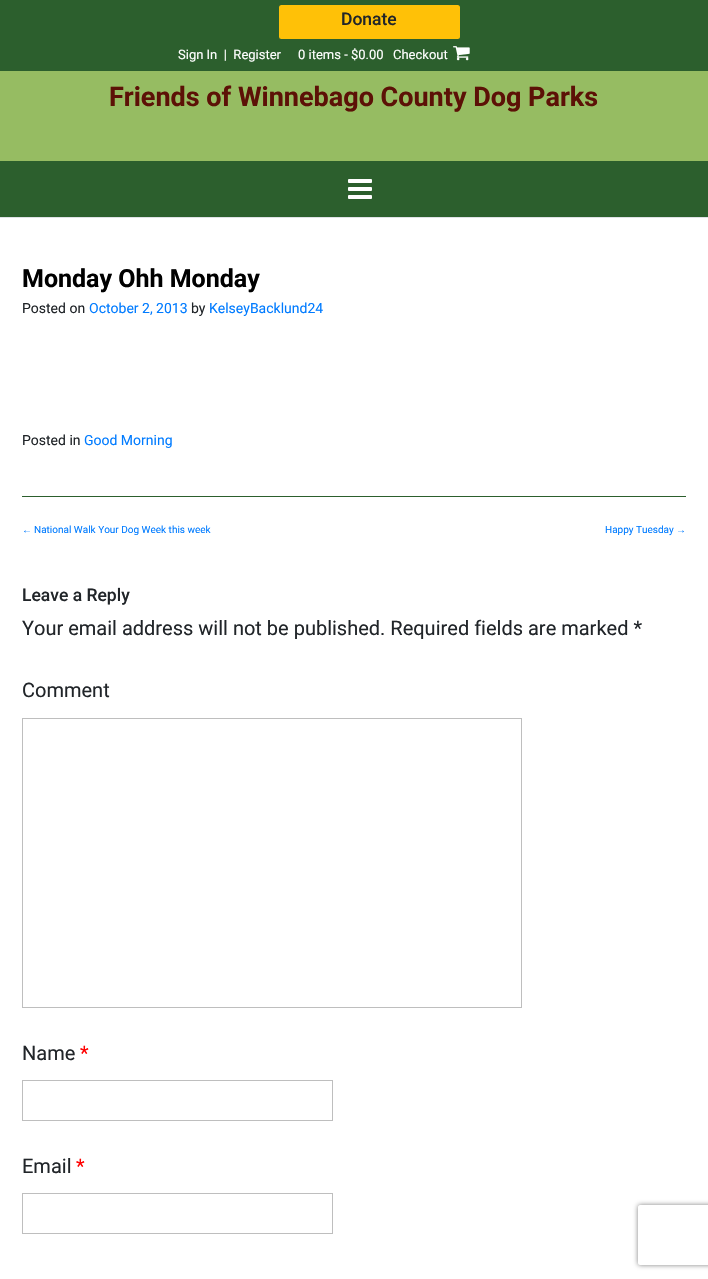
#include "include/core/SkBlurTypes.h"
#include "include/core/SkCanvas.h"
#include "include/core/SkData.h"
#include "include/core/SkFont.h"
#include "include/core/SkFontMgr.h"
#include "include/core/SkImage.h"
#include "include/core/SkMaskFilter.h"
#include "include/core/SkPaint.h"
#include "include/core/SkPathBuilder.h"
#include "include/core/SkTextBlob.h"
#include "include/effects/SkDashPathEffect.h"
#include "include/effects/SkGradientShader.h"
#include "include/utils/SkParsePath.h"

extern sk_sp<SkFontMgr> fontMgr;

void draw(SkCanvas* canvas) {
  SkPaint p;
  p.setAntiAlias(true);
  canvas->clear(SK_ColorWHITE);
  p.setColor(SkColorSetRGB(44, 95, 45));
  canvas->drawRect(SkRect::MakeLTRB(0, 0, 708, 71), p);
  p.setColor(SkColorSetRGB(255, 193, 7));
  canvas->drawRoundRect(SkRect::MakeLTRB(279, 5, 460, 39), 2.5f, 2.5f, p);
  canvas->drawImageRect(SkImages::DeferredFromEncodedData(SkData::MakeFromFileName("images/1.png")), SkRect::MakeLTRB(453, 46, 470, 61), SkSamplingOptions());
  p.setColor(SkColorSetRGB(150, 188, 98));
  canvas->drawRect(SkRect::MakeLTRB(0, 71, 708, 161), p);
  p.setColor(SkColorSetRGB(44, 95, 45));
  canvas->drawRect(SkRect::MakeLTRB(0, 161, 708, 217), p);
  p.setColor(SkColorSetRGB(222, 226, 230));
  canvas->drawRect(SkRect::MakeLTRB(0, 217, 708, 218), p);
  canvas->drawImageRect(SkImages::DeferredFromEncodedData(SkData::MakeFromFileName("images/2.png")), SkRect::MakeLTRB(348, 179, 372, 199), SkSamplingOptions());
  p.setColor(SkColorSetRGB(44, 95, 45));
  canvas->drawRect(SkRect::MakeLTRB(22, 496, 686, 497), p);
  p.setStyle(SkPaint::kStroke_Style);
  p.setStrokeWidth(1);
  p.setColor(SkColorSetRGB(190, 190, 190));
  canvas->drawRect(SkRect::MakeLTRB(22.5f, 718.5f, 521.5f, 1007.5f), p);
  canvas->drawRect(SkRect::MakeLTRB(22.5f, 1080.5f, 332.5f, 1120.5f), p);
  canvas->drawRect(SkRect::MakeLTRB(22.5f, 1193.5f, 332.5f, 1233.5f), p);
  canvas->save();
  canvas->clipPath(SkPathBuilder(SkPathFillType::kEvenOdd).moveTo(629, 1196).lineTo(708, 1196).lineTo(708, 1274).lineTo(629, 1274).close().moveTo(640, 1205).lineTo(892, 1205).cubicTo(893, 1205, 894, 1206, 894, 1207).lineTo(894, 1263).cubicTo(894, 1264, 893, 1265, 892, 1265).lineTo(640, 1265).cubicTo(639, 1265, 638, 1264, 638, 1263).lineTo(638, 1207).cubicTo(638, 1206, 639, 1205, 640, 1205).close().detach(), true);
  p.setStyle(SkPaint::kFill_Style);
  p.setColor(SkColorSetRGB(128, 128, 128));
  p.setMaskFilter(SkMaskFilter::MakeBlur(kNormal_SkBlurStyle, 2.5f));
  canvas->drawRoundRect(SkRect::MakeLTRB(638, 1205, 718, 1265), 2, 2, p);
  p.setMaskFilter(nullptr);
  canvas->restore();
  SkFont font1(fontMgr->matchFamilyStyle("Roboto", SkFontStyle(500, SkFontStyle::kNormal_Width, SkFontStyle::kUpright_Slant)), 17.5f);
  font1.setSubpixel(true);
  p.setColor(SkColorSetRGB(33, 37, 41));
  canvas->drawString("Donate", 341, 25, font1, p);
  SkFont font2(fontMgr->matchFamilyStyle("Roboto", SkFontStyle::Normal()), 13);
  font2.setSubpixel(true);
  p.setColor(SK_ColorWHITE);
  canvas->drawString("Sign In  |  Register", 178, 59, font2, p);
  canvas->drawString("0 items - $0.00", 298, 59, font2, p);
  canvas->drawString("Checkout", 393, 59, font2, p);
  SkFont font3(fontMgr->matchFamilyStyle("Roboto", SkFontStyle::Bold()), 27);
  font3.setSubpixel(true);
  p.setColor(SkColorSetRGB(92, 17, 6));
  canvas->drawString("Friends of Winnebago County Dog Parks", 109, 106, font3, p);
  SkFont font4(fontMgr->matchFamilyStyle("Roboto", SkFontStyle::Bold()), 25);
  font4.setSubpixel(true);
  p.setColor(SK_ColorBLACK);
  canvas->drawString("Monday Ohh Monday", 22, 287, font4, p);
  SkFont font5(fontMgr->matchFamilyStyle("Roboto", SkFontStyle::Normal()), 14);
  font5.setSubpixel(true);
  p.setColor(SkColorSetRGB(33, 37, 41));
  canvas->drawString("Posted on", 22, 313, font5, p);
  p.setColor(SkColorSetRGB(0, 123, 255));
  canvas->drawString("October 2, 2013", 89, 313, font5, p);
  p.setColor(SkColorSetRGB(33, 37, 41));
  canvas->drawString("by", 191, 313, font5, p);
  p.setColor(SkColorSetRGB(0, 123, 255));
  canvas->drawString("KelseyBacklund24", 209, 313, font5, p);
  p.setColor(SkColorSetRGB(33, 37, 41));
  canvas->drawString("Posted in", 22, 445, font5, p);
  p.setColor(SkColorSetRGB(0, 123, 255));
  canvas->drawString("Good Morning", 84, 445, font5, p);
  SkFont font6(fontMgr->matchFamilyStyle("Liberation Sans", SkFontStyle::Normal()), 10);
  font6.setSubpixel(true);
  canvas->drawString("←", 22, 533, font6, p);
  SkFont font7(fontMgr->matchFamilyStyle("Roboto", SkFontStyle::Normal()), 10);
  font7.setSubpixel(true);
  canvas->drawString("National Walk Your Dog Week this week", 34, 533, font7, p);
  canvas->drawString("Happy Tuesday", 605, 533, font7, p);
  canvas->drawString("→", 676, 533, font6, p);
  p.setColor(SkColorSetRGB(33, 37, 41));
  canvas->drawString("Leave a Reply", 22, 601, font1, p);
  SkFont font8(fontMgr->matchFamilyStyle("Roboto", SkFontStyle::Normal()), 20);
  font8.setSubpixel(true);
  canvas->drawString("Your email address will not be published. Required fields are marked *", 22, 635, font8, p);
  canvas->drawString("Comment", 22, 697, font8, p);
  canvas->drawString("Name", 22, 1060, font8, p);
  p.setColor(SkColorSetRGB(255, 0, 0));
  canvas->drawString("*", 80, 1060, font8, p);
  p.setColor(SkColorSetRGB(33, 37, 41));
  canvas->drawString("Email", 22, 1173, font8, p);
  p.setColor(SkColorSetRGB(255, 0, 0));
  canvas->drawString("*", 76, 1173, font8, p);
}
